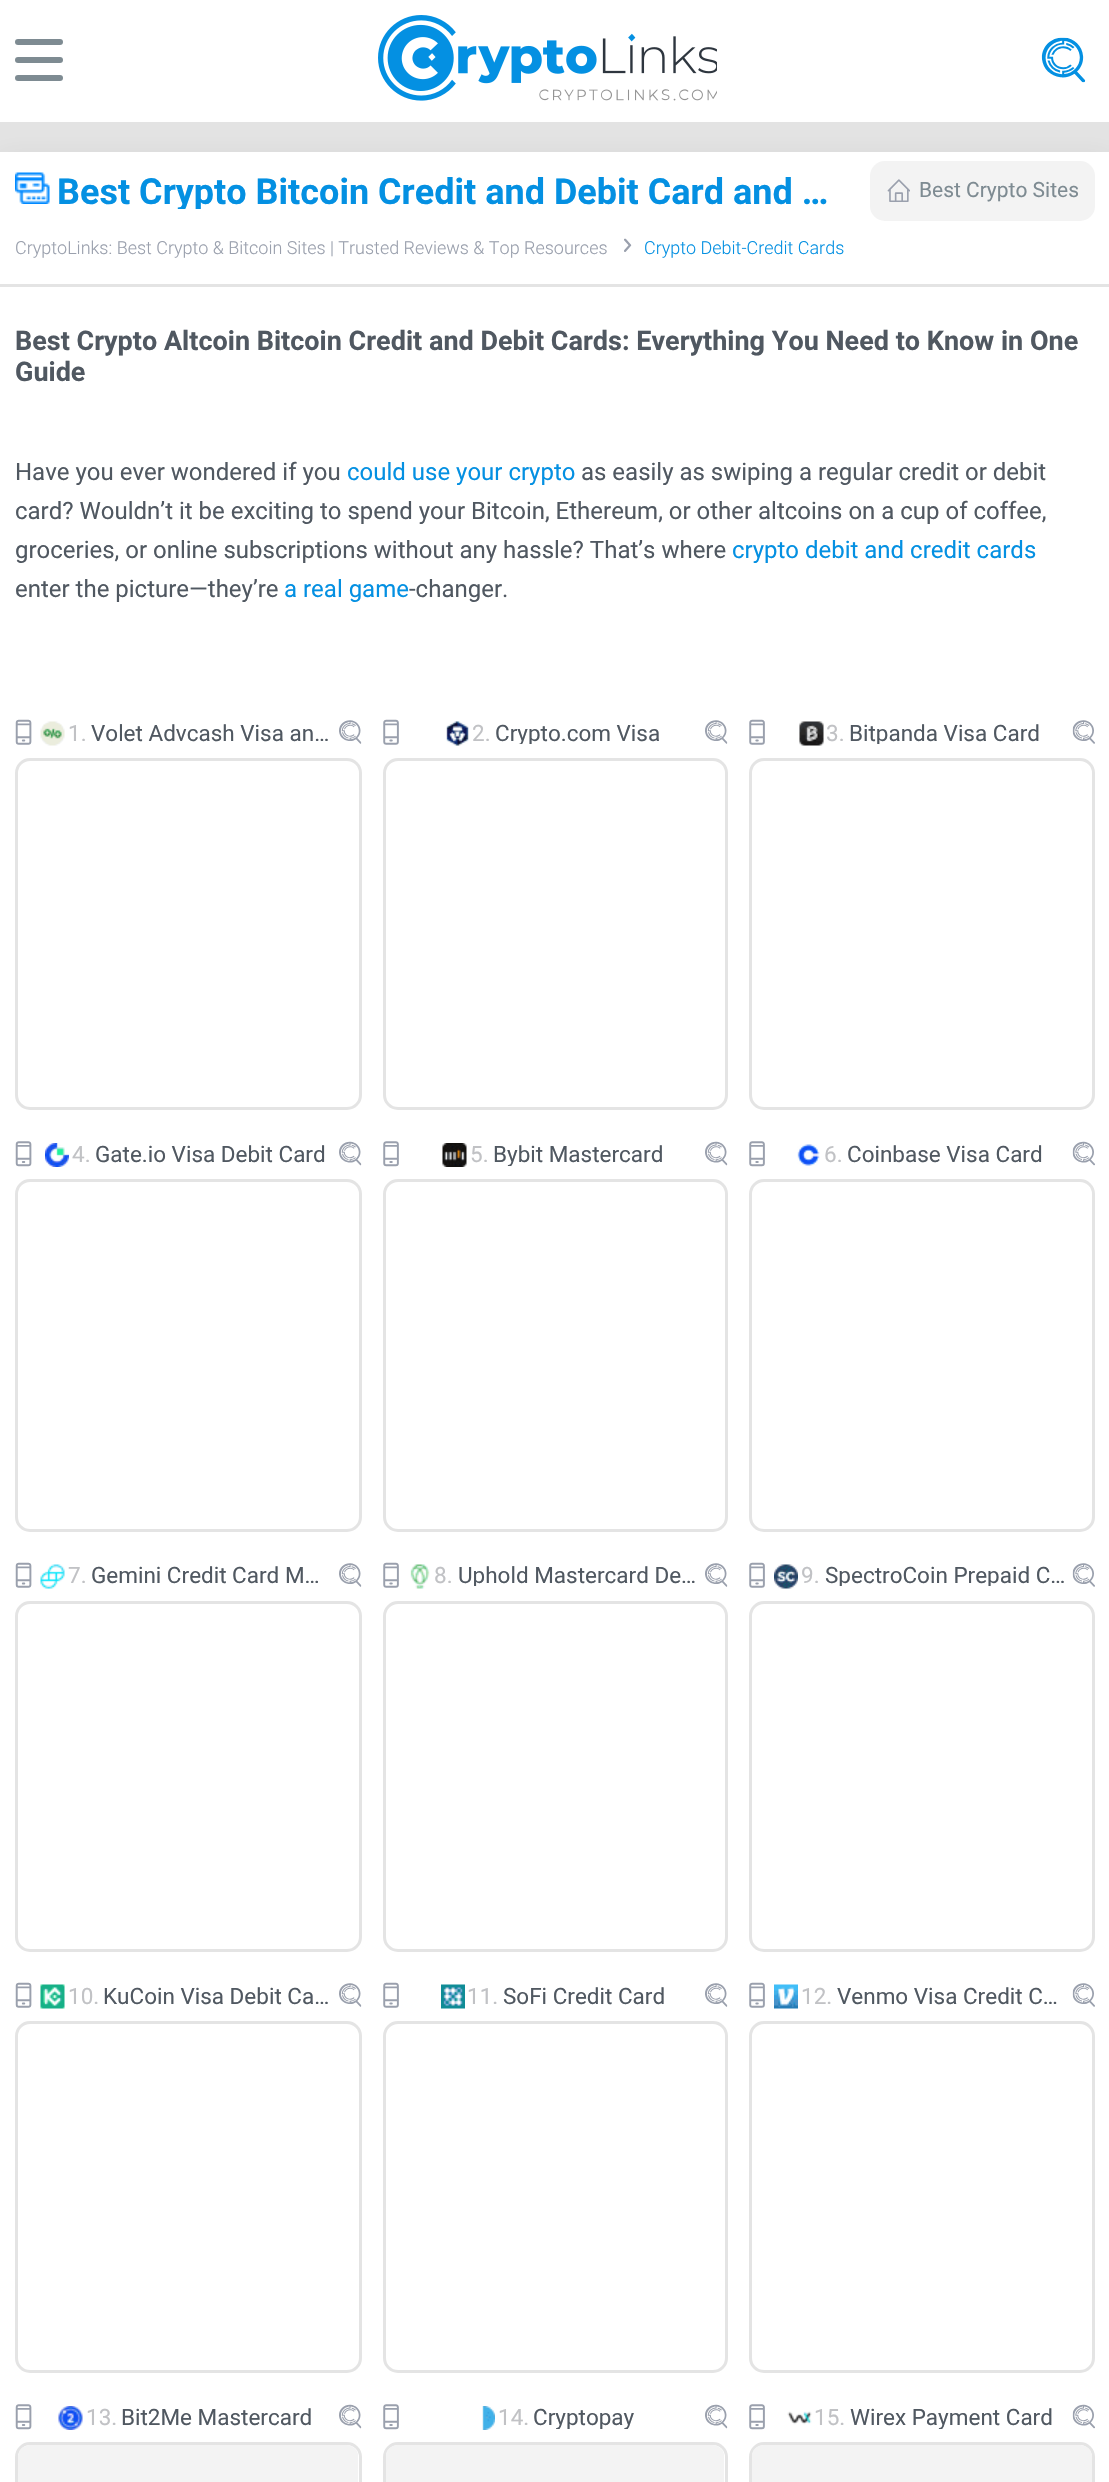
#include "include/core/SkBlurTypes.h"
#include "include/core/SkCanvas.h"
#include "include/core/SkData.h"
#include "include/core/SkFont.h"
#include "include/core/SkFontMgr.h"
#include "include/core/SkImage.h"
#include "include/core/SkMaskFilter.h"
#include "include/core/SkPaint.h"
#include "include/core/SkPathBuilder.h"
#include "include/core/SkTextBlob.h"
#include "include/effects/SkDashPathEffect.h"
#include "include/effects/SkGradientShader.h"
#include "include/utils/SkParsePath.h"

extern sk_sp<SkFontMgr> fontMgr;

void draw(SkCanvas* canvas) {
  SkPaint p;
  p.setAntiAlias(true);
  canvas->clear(SkColorSetRGB(228, 228, 228));
  p.setColor(SkColorSetARGB(28, 0, 0, 0));
  p.setMaskFilter(SkMaskFilter::MakeBlur(kNormal_SkBlurStyle, 13.5f));
  canvas->drawRect(SkRect::MakeLTRB(0, 161, 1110, 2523), p);
  p.setMaskFilter(nullptr);
  p.setColor(SK_ColorWHITE);
  canvas->drawRect(SkRect::MakeLTRB(0, 0, 1109, 122), p);
  p.setColor(SkColorSetRGB(126, 139, 146));
  canvas->drawRoundRect(SkRect::MakeLTRB(15, 57, 63, 63), 3, 3, p);
  canvas->drawRoundRect(SkRect::MakeLTRB(15, 39, 63, 45), 3, 3, p);
  canvas->drawRoundRect(SkRect::MakeLTRB(15, 75, 63, 81), 3, 3, p);
  canvas->drawImageRect(SkImages::DeferredFromEncodedData(SkData::MakeFromFileName("images/1.png")), SkRect::MakeLTRB(378, 15, 717, 101), SkSamplingOptions());
  canvas->drawImageRect(SkImages::DeferredFromEncodedData(SkData::MakeFromFileName("images/2.png")), SkRect::MakeLTRB(1041, 37, 1086, 83), SkSamplingOptions());
  p.setColor(SK_ColorWHITE);
  canvas->drawRect(SkRect::MakeLTRB(0, 152, 1109, 2482), p);
  p.setColor(SkColorSetRGB(228, 228, 228));
  canvas->drawRect(SkRect::MakeLTRB(0, 284, 1109, 287), p);
  canvas->drawImageRect(SkImages::DeferredFromEncodedData(SkData::MakeFromFileName("images/3.png")), SkRect::MakeLTRB(15, 172, 50, 204), SkSamplingOptions());
  p.setColor(SkColorSetRGB(243, 243, 243));
  canvas->drawRoundRect(SkRect::MakeLTRB(870, 161, 1095, 221), 15, 15, p);
  canvas->drawImageRect(SkImages::DeferredFromEncodedData(SkData::MakeFromFileName("images/4.png")), SkRect::MakeLTRB(887, 179, 910, 202), SkSamplingOptions());
  canvas->drawImageRect(SkImages::DeferredFromEncodedData(SkData::MakeFromFileName("images/5.png")), SkRect::MakeLTRB(624, 238, 632, 252), SkSamplingOptions());
  canvas->drawImageRect(SkImages::DeferredFromEncodedData(SkData::MakeFromFileName("images/6.png")), SkRect::MakeLTRB(15, 719, 32, 745), SkSamplingOptions());
  canvas->drawImageRect(SkImages::DeferredFromEncodedData(SkData::MakeFromFileName("images/7.png")), SkRect::MakeLTRB(40, 721, 65, 746), SkSamplingOptions());
  canvas->drawImageRect(SkImages::DeferredFromEncodedData(SkData::MakeFromFileName("images/8.png")), SkRect::MakeLTRB(339, 720, 362, 744), SkSamplingOptions());
  p.setStyle(SkPaint::kStroke_Style);
  p.setStrokeWidth(3);
  p.setColor(SkColorSetRGB(228, 228, 228));
  canvas->drawRoundRect(SkRect::MakeLTRB(16.5f, 759.5f, 360.5f, 1108.5f), 13.5f, 13.5f, p);
  canvas->drawImageRect(SkImages::DeferredFromEncodedData(SkData::MakeFromFileName("images/9.png")), SkRect::MakeLTRB(383, 719, 399, 745), SkSamplingOptions());
  canvas->drawImageRect(SkImages::DeferredFromEncodedData(SkData::MakeFromFileName("images/10.png")), SkRect::MakeLTRB(446, 721, 469, 746), SkSamplingOptions());
  canvas->drawImageRect(SkImages::DeferredFromEncodedData(SkData::MakeFromFileName("images/8.png")), SkRect::MakeLTRB(705, 720, 728, 744), SkSamplingOptions());
  canvas->drawRoundRect(SkRect::MakeLTRB(384.5f, 759.5f, 726.5f, 1108.5f), 13.5f, 13.5f, p);
  canvas->drawImageRect(SkImages::DeferredFromEncodedData(SkData::MakeFromFileName("images/11.png")), SkRect::MakeLTRB(749, 719, 765, 745), SkSamplingOptions());
  canvas->drawImageRect(SkImages::DeferredFromEncodedData(SkData::MakeFromFileName("images/12.png")), SkRect::MakeLTRB(799, 721, 824, 746), SkSamplingOptions());
  canvas->drawImageRect(SkImages::DeferredFromEncodedData(SkData::MakeFromFileName("images/13.png")), SkRect::MakeLTRB(1072, 720, 1095, 744), SkSamplingOptions());
  canvas->drawRoundRect(SkRect::MakeLTRB(750.5f, 759.5f, 1093.5f, 1108.5f), 13.5f, 13.5f, p);
  canvas->drawImageRect(SkImages::DeferredFromEncodedData(SkData::MakeFromFileName("images/14.png")), SkRect::MakeLTRB(15, 1141, 32, 1167), SkSamplingOptions());
  canvas->drawImageRect(SkImages::DeferredFromEncodedData(SkData::MakeFromFileName("images/15.png")), SkRect::MakeLTRB(45, 1143, 69, 1167), SkSamplingOptions());
  canvas->drawImageRect(SkImages::DeferredFromEncodedData(SkData::MakeFromFileName("images/16.png")), SkRect::MakeLTRB(339, 1141, 362, 1166), SkSamplingOptions());
  canvas->drawRoundRect(SkRect::MakeLTRB(16.5f, 1180.5f, 360.5f, 1530.5f), 13.5f, 13.5f, p);
  canvas->drawImageRect(SkImages::DeferredFromEncodedData(SkData::MakeFromFileName("images/17.png")), SkRect::MakeLTRB(383, 1141, 399, 1167), SkSamplingOptions());
  canvas->drawImageRect(SkImages::DeferredFromEncodedData(SkData::MakeFromFileName("images/18.png")), SkRect::MakeLTRB(442, 1143, 467, 1167), SkSamplingOptions());
  canvas->drawImageRect(SkImages::DeferredFromEncodedData(SkData::MakeFromFileName("images/16.png")), SkRect::MakeLTRB(705, 1141, 728, 1166), SkSamplingOptions());
  canvas->drawRoundRect(SkRect::MakeLTRB(384.5f, 1180.5f, 726.5f, 1530.5f), 13.5f, 13.5f, p);
  canvas->drawImageRect(SkImages::DeferredFromEncodedData(SkData::MakeFromFileName("images/19.png")), SkRect::MakeLTRB(749, 1141, 765, 1167), SkSamplingOptions());
  canvas->drawImageRect(SkImages::DeferredFromEncodedData(SkData::MakeFromFileName("images/20.png")), SkRect::MakeLTRB(797, 1144, 820, 1166), SkSamplingOptions());
  canvas->drawImageRect(SkImages::DeferredFromEncodedData(SkData::MakeFromFileName("images/21.png")), SkRect::MakeLTRB(1072, 1141, 1095, 1166), SkSamplingOptions());
  canvas->drawRoundRect(SkRect::MakeLTRB(750.5f, 1180.5f, 1093.5f, 1530.5f), 13.5f, 13.5f, p);
  canvas->drawImageRect(SkImages::DeferredFromEncodedData(SkData::MakeFromFileName("images/6.png")), SkRect::MakeLTRB(15, 1562, 32, 1588), SkSamplingOptions());
  canvas->drawImageRect(SkImages::DeferredFromEncodedData(SkData::MakeFromFileName("images/22.png")), SkRect::MakeLTRB(40, 1564, 65, 1589), SkSamplingOptions());
  canvas->drawImageRect(SkImages::DeferredFromEncodedData(SkData::MakeFromFileName("images/8.png")), SkRect::MakeLTRB(339, 1563, 362, 1587), SkSamplingOptions());
  canvas->drawRoundRect(SkRect::MakeLTRB(16.5f, 1602.5f, 360.5f, 1950.5f), 13.5f, 13.5f, p);
  canvas->drawImageRect(SkImages::DeferredFromEncodedData(SkData::MakeFromFileName("images/9.png")), SkRect::MakeLTRB(383, 1562, 399, 1588), SkSamplingOptions());
  canvas->drawImageRect(SkImages::DeferredFromEncodedData(SkData::MakeFromFileName("images/23.png")), SkRect::MakeLTRB(410, 1564, 430, 1589), SkSamplingOptions());
  canvas->drawImageRect(SkImages::DeferredFromEncodedData(SkData::MakeFromFileName("images/8.png")), SkRect::MakeLTRB(705, 1563, 728, 1587), SkSamplingOptions());
  canvas->drawRoundRect(SkRect::MakeLTRB(384.5f, 1602.5f, 726.5f, 1950.5f), 13.5f, 13.5f, p);
  canvas->drawImageRect(SkImages::DeferredFromEncodedData(SkData::MakeFromFileName("images/11.png")), SkRect::MakeLTRB(749, 1562, 765, 1588), SkSamplingOptions());
  canvas->drawImageRect(SkImages::DeferredFromEncodedData(SkData::MakeFromFileName("images/24.png")), SkRect::MakeLTRB(774, 1564, 798, 1589), SkSamplingOptions());
  canvas->drawImageRect(SkImages::DeferredFromEncodedData(SkData::MakeFromFileName("images/13.png")), SkRect::MakeLTRB(1072, 1563, 1095, 1587), SkSamplingOptions());
  canvas->drawRoundRect(SkRect::MakeLTRB(750.5f, 1602.5f, 1093.5f, 1950.5f), 13.5f, 13.5f, p);
  canvas->drawImageRect(SkImages::DeferredFromEncodedData(SkData::MakeFromFileName("images/6.png")), SkRect::MakeLTRB(15, 1982, 32, 2008), SkSamplingOptions());
  canvas->drawImageRect(SkImages::DeferredFromEncodedData(SkData::MakeFromFileName("images/25.png")), SkRect::MakeLTRB(40, 1984, 65, 2009), SkSamplingOptions());
  canvas->drawImageRect(SkImages::DeferredFromEncodedData(SkData::MakeFromFileName("images/8.png")), SkRect::MakeLTRB(339, 1983, 362, 2007), SkSamplingOptions());
  canvas->drawRoundRect(SkRect::MakeLTRB(16.5f, 2022.5f, 360.5f, 2371.5f), 13.5f, 13.5f, p);
  canvas->drawImageRect(SkImages::DeferredFromEncodedData(SkData::MakeFromFileName("images/9.png")), SkRect::MakeLTRB(383, 1982, 399, 2008), SkSamplingOptions());
  canvas->drawImageRect(SkImages::DeferredFromEncodedData(SkData::MakeFromFileName("images/26.png")), SkRect::MakeLTRB(441, 1984, 465, 2009), SkSamplingOptions());
  canvas->drawImageRect(SkImages::DeferredFromEncodedData(SkData::MakeFromFileName("images/8.png")), SkRect::MakeLTRB(705, 1983, 728, 2007), SkSamplingOptions());
  canvas->drawRoundRect(SkRect::MakeLTRB(384.5f, 2022.5f, 726.5f, 2371.5f), 13.5f, 13.5f, p);
  canvas->drawImageRect(SkImages::DeferredFromEncodedData(SkData::MakeFromFileName("images/11.png")), SkRect::MakeLTRB(749, 1982, 765, 2008), SkSamplingOptions());
  canvas->drawImageRect(SkImages::DeferredFromEncodedData(SkData::MakeFromFileName("images/27.png")), SkRect::MakeLTRB(774, 1984, 798, 2009), SkSamplingOptions());
  canvas->drawImageRect(SkImages::DeferredFromEncodedData(SkData::MakeFromFileName("images/13.png")), SkRect::MakeLTRB(1072, 1983, 1095, 2007), SkSamplingOptions());
  canvas->drawRoundRect(SkRect::MakeLTRB(750.5f, 2022.5f, 1093.5f, 2371.5f), 13.5f, 13.5f, p);
  canvas->drawImageRect(SkImages::DeferredFromEncodedData(SkData::MakeFromFileName("images/14.png")), SkRect::MakeLTRB(15, 2404, 32, 2430), SkSamplingOptions());
  canvas->drawImageRect(SkImages::DeferredFromEncodedData(SkData::MakeFromFileName("images/28.png")), SkRect::MakeLTRB(58, 2406, 83, 2430), SkSamplingOptions());
  canvas->drawImageRect(SkImages::DeferredFromEncodedData(SkData::MakeFromFileName("images/16.png")), SkRect::MakeLTRB(339, 2404, 362, 2429), SkSamplingOptions());
  canvas->drawRoundRect(SkRect::MakeLTRB(16.5f, 2443.5f, 360.5f, 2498.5f), 13.5f, 13.5f, p);
  canvas->drawImageRect(SkImages::DeferredFromEncodedData(SkData::MakeFromFileName("images/29.png")), SkRect::MakeLTRB(18, 2445, 358, 2482), SkSamplingOptions());
  canvas->drawImageRect(SkImages::DeferredFromEncodedData(SkData::MakeFromFileName("images/17.png")), SkRect::MakeLTRB(383, 2404, 399, 2430), SkSamplingOptions());
  canvas->drawImageRect(SkImages::DeferredFromEncodedData(SkData::MakeFromFileName("images/30.png")), SkRect::MakeLTRB(482, 2406, 495, 2430), SkSamplingOptions());
  canvas->drawImageRect(SkImages::DeferredFromEncodedData(SkData::MakeFromFileName("images/16.png")), SkRect::MakeLTRB(705, 2404, 728, 2429), SkSamplingOptions());
  canvas->drawRoundRect(SkRect::MakeLTRB(384.5f, 2443.5f, 726.5f, 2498.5f), 13.5f, 13.5f, p);
  canvas->drawImageRect(SkImages::DeferredFromEncodedData(SkData::MakeFromFileName("images/31.png")), SkRect::MakeLTRB(386, 2445, 724, 2482), SkSamplingOptions());
  canvas->drawImageRect(SkImages::DeferredFromEncodedData(SkData::MakeFromFileName("images/19.png")), SkRect::MakeLTRB(749, 2404, 765, 2430), SkSamplingOptions());
  canvas->drawImageRect(SkImages::DeferredFromEncodedData(SkData::MakeFromFileName("images/32.png")), SkRect::MakeLTRB(787, 2411, 812, 2425), SkSamplingOptions());
  canvas->drawImageRect(SkImages::DeferredFromEncodedData(SkData::MakeFromFileName("images/21.png")), SkRect::MakeLTRB(1072, 2404, 1095, 2429), SkSamplingOptions());
  canvas->drawRoundRect(SkRect::MakeLTRB(750.5f, 2443.5f, 1093.5f, 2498.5f), 13.5f, 13.5f, p);
  canvas->drawImageRect(SkImages::DeferredFromEncodedData(SkData::MakeFromFileName("images/33.png")), SkRect::MakeLTRB(752, 2445, 1092, 2482), SkSamplingOptions());
  canvas->save();
  canvas->clipRect(SkRect::MakeLTRB(57, 173, 834, 209));
  SkFont font1(fontMgr->matchFamilyStyle("Roboto", SkFontStyle::Bold()), 36);
  font1.setSubpixel(true);
  p.setStyle(SkPaint::kFill_Style);
  p.setColor(SkColorSetRGB(4, 144, 226));
  canvas->drawString("Best Crypto Bitcoin Credit and Debit Card and …", 57, 204, font1, p);
  canvas->restore();
  SkFont font2(fontMgr->matchFamilyStyle("Roboto", SkFontStyle::Normal()), 21);
  font2.setSubpixel(true);
  p.setColor(SkColorSetRGB(126, 139, 146));
  canvas->drawString("Best Crypto Sites", 919, 197, font2, p);
  SkFont font3(fontMgr->matchFamilyStyle("Roboto", SkFontStyle(300, SkFontStyle::kNormal_Width, SkFontStyle::kUpright_Slant)), 18);
  font3.setSubpixel(true);
  p.setColor(SkColorSetRGB(154, 160, 173));
  canvas->drawString("CryptoLinks: Best Crypto & Bitcoin Sites | Trusted Reviews & Top Resources", 15, 254, font3, p);
  p.setColor(SkColorSetRGB(4, 144, 226));
  canvas->drawString("Crypto Debit-Credit Cards", 644, 254, font3, p);
  SkFont font4(fontMgr->matchFamilyStyle("Roboto", SkFontStyle::Bold()), 27);
  font4.setSubpixel(true);
  p.setColor(SkColorSetRGB(80, 88, 97));
  canvas->drawString("Best Crypto Altcoin Bitcoin Credit and Debit Cards: Everything You Need to Know in One", 15, 350, font4, p);
  canvas->drawString("Guide", 15, 381, font4, p);
  SkFont font5(fontMgr->matchFamilyStyle("Roboto", SkFontStyle::Normal()), 24);
  font5.setSubpixel(true);
  canvas->drawString("Have you ever wondered if you", 15, 480, font5, p);
  p.setColor(SkColorSetRGB(4, 144, 226));
  canvas->drawString("could use your crypto", 347, 480, font5, p);
  p.setColor(SkColorSetRGB(80, 88, 97));
  canvas->drawString("as easily as swiping a regular credit or debit", 581, 480, font5, p);
  canvas->drawString("card? Wouldn’t it be exciting to spend your Bitcoin, Ethereum, or other altcoins on a cup of coffee,", 15, 519, font5, p);
  canvas->drawString("groceries, or online subscriptions without any hassle? That’s where", 15, 558, font5, p);
  p.setColor(SkColorSetRGB(4, 144, 226));
  canvas->drawString("crypto debit and credit cards", 732, 558, font5, p);
  p.setColor(SkColorSetRGB(80, 88, 97));
  canvas->drawString("enter the picture—they’re", 15, 597, font5, p);
  p.setColor(SkColorSetRGB(4, 144, 226));
  canvas->drawString("a real game", 284, 597, font5, p);
  p.setColor(SkColorSetRGB(80, 88, 97));
  canvas->drawString("-changer.", 409, 597, font5, p);
  SkFont font6(fontMgr->matchFamilyStyle("Roboto", SkFontStyle::Normal()), 22.5f);
  font6.setSubpixel(true);
  p.setColor(SkColorSetRGB(193, 194, 197));
  canvas->drawString("1.", 68, 741, font6, p);
  p.setColor(SkColorSetRGB(80, 88, 97));
  canvas->drawString("Volet Advcash Visa an…", 91, 741, font6, p);
  p.setColor(SkColorSetRGB(193, 194, 197));
  canvas->drawString("2.", 472, 741, font6, p);
  canvas->save();
  canvas->clipRect(SkRect::MakeLTRB(495, 722, 660, 744));
  p.setColor(SkColorSetRGB(80, 88, 97));
  canvas->drawString("Crypto.com Visa", 495, 741, font6, p);
  canvas->restore();
  p.setColor(SkColorSetRGB(193, 194, 197));
  canvas->drawString("3.", 826, 741, font6, p);
  canvas->save();
  canvas->clipRect(SkRect::MakeLTRB(849, 722, 1040, 744));
  p.setColor(SkColorSetRGB(80, 88, 97));
  canvas->drawString("Bitpanda Visa Card", 849, 741, font6, p);
  canvas->restore();
  p.setColor(SkColorSetRGB(193, 194, 197));
  canvas->drawString("4.", 72, 1162, font6, p);
  p.setColor(SkColorSetRGB(80, 88, 97));
  canvas->drawString("Gate.io Visa Debit Card", 95, 1162, font6, p);
  p.setColor(SkColorSetRGB(193, 194, 197));
  canvas->drawString("5.", 470, 1162, font6, p);
  canvas->save();
  canvas->clipRect(SkRect::MakeLTRB(492, 1143, 663, 1166));
  p.setColor(SkColorSetRGB(80, 88, 97));
  canvas->drawString("Bybit Mastercard", 493, 1162, font6, p);
  canvas->restore();
  p.setColor(SkColorSetRGB(193, 194, 197));
  canvas->drawString("6.", 824, 1162, font6, p);
  p.setColor(SkColorSetRGB(80, 88, 97));
  canvas->drawString("Coinbase Visa Card", 847, 1162, font6, p);
  p.setColor(SkColorSetRGB(193, 194, 197));
  canvas->drawString("7.", 68, 1583, font6, p);
  p.setColor(SkColorSetRGB(80, 88, 97));
  canvas->drawString("Gemini Credit Card M…", 91, 1583, font6, p);
  p.setColor(SkColorSetRGB(193, 194, 197));
  canvas->drawString("8.", 434, 1583, font6, p);
  canvas->save();
  canvas->clipRect(SkRect::MakeLTRB(458, 1563, 698, 1586));
  p.setColor(SkColorSetRGB(80, 88, 97));
  canvas->drawString("Uphold Mastercard De…", 458, 1583, font6, p);
  canvas->restore();
  p.setColor(SkColorSetRGB(193, 194, 197));
  canvas->drawString("9.", 801, 1583, font6, p);
  canvas->save();
  canvas->clipRect(SkRect::MakeLTRB(825, 1563, 1065, 1586));
  p.setColor(SkColorSetRGB(80, 88, 97));
  canvas->drawString("SpectroCoin Prepaid C…", 825, 1583, font6, p);
  canvas->restore();
  p.setColor(SkColorSetRGB(193, 194, 197));
  canvas->drawString("10.", 68, 2004, font6, p);
  p.setColor(SkColorSetRGB(80, 88, 97));
  canvas->drawString("KuCoin Visa Debit Ca…", 103, 2004, font6, p);
  p.setColor(SkColorSetRGB(193, 194, 197));
  canvas->drawString("11.", 467, 2004, font6, p);
  p.setColor(SkColorSetRGB(80, 88, 97));
  canvas->drawString("SoFi Credit Card", 503, 2004, font6, p);
  p.setColor(SkColorSetRGB(193, 194, 197));
  canvas->drawString("12.", 801, 2004, font6, p);
  p.setColor(SkColorSetRGB(80, 88, 97));
  canvas->drawString("Venmo Visa Credit C…", 837, 2004, font6, p);
  p.setColor(SkColorSetRGB(193, 194, 197));
  canvas->drawString("13.", 86, 2425, font6, p);
  p.setColor(SkColorSetRGB(80, 88, 97));
  canvas->drawString("Bit2Me Mastercard", 121, 2425, font6, p);
  p.setColor(SkColorSetRGB(193, 194, 197));
  canvas->drawString("14.", 498, 2425, font6, p);
  canvas->save();
  canvas->clipRect(SkRect::MakeLTRB(534, 2406, 635, 2429));
  p.setColor(SkColorSetRGB(80, 88, 97));
  canvas->drawString("Cryptopay", 533, 2425, font6, p);
  canvas->restore();
  p.setColor(SkColorSetRGB(193, 194, 197));
  canvas->drawString("15.", 814, 2425, font6, p);
  canvas->save();
  canvas->clipRect(SkRect::MakeLTRB(849, 2406, 1053, 2429));
  p.setColor(SkColorSetRGB(80, 88, 97));
  canvas->drawString("Wirex Payment Card", 850, 2425, font6, p);
  canvas->restore();
}
